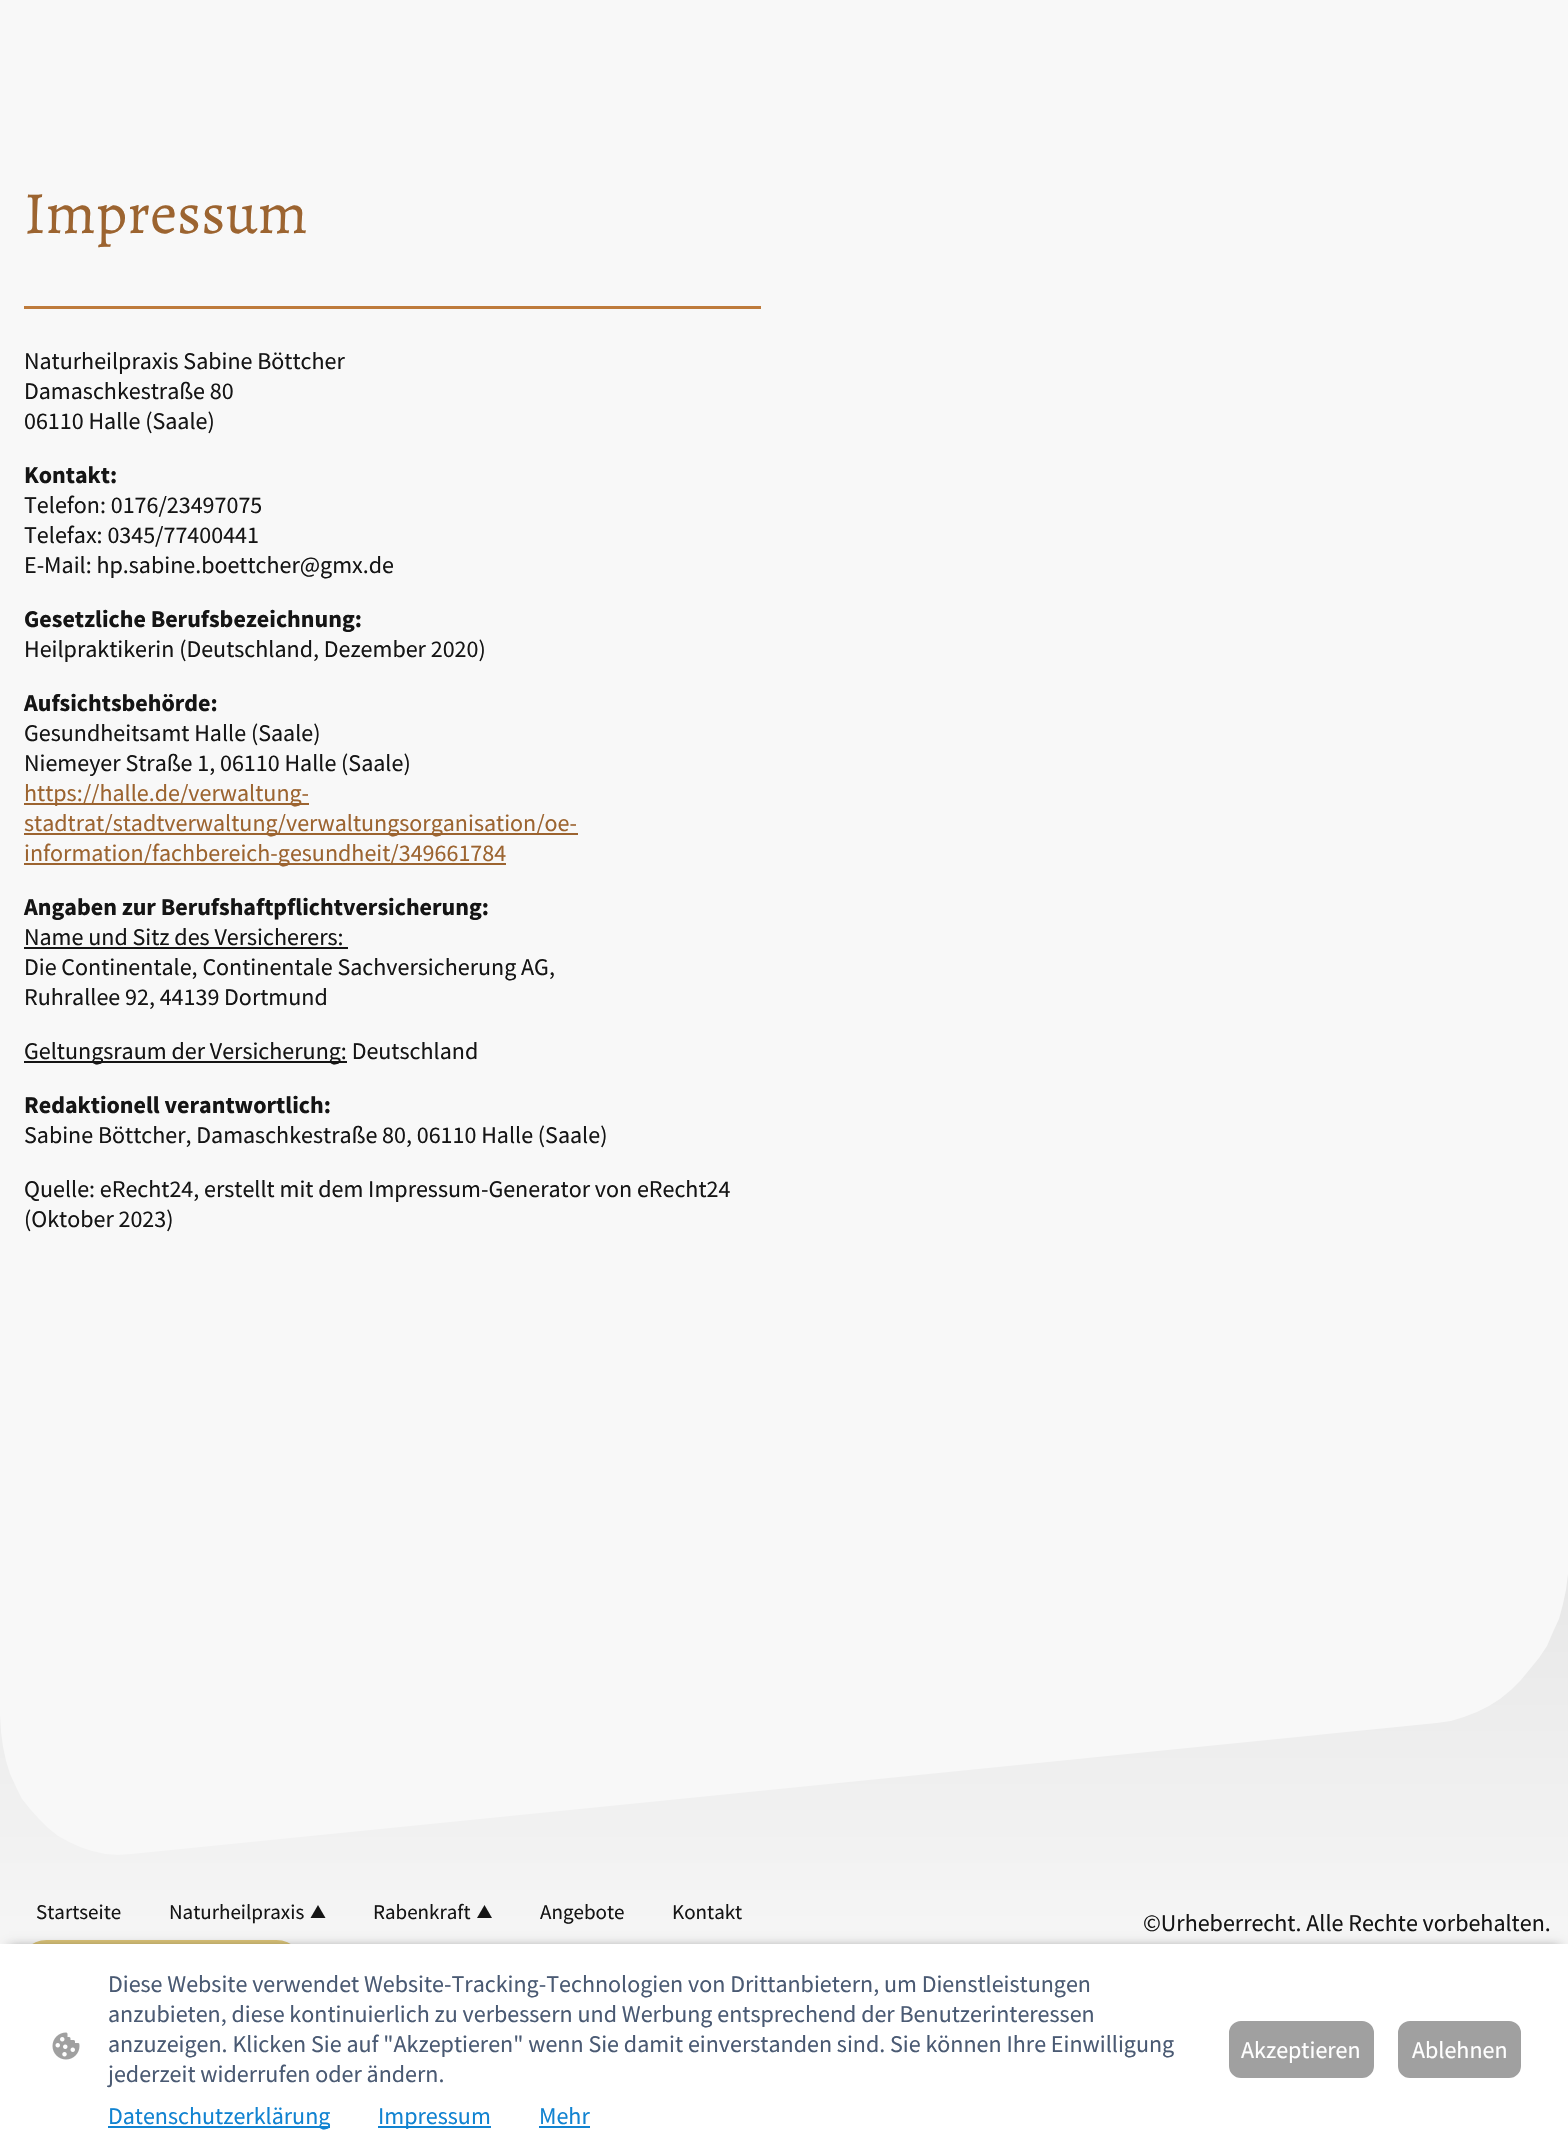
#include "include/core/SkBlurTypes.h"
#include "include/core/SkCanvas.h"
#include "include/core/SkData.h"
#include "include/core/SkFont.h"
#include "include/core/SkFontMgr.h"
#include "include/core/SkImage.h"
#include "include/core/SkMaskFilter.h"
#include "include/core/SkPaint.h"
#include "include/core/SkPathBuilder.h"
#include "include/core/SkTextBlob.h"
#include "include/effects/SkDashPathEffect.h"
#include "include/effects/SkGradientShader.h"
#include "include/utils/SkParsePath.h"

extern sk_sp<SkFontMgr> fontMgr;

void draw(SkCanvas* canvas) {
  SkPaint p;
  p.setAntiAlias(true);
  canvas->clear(SkColorSetRGB(248, 248, 248));
  p.setColor(SkColorSetRGB(190, 123, 60));
  canvas->drawRect(SkRect::MakeLTRB(24, 306, 761, 309), p);
  p.setColor(SkColorSetRGB(156, 100, 48));
  canvas->drawRect(SkRect::MakeLTRB(24, 803, 309, 805), p);
  canvas->drawRect(SkRect::MakeLTRB(24, 833, 578, 835), p);
  canvas->drawRect(SkRect::MakeLTRB(24, 863, 506, 865), p);
  p.setColor(SkColorSetRGB(21, 21, 21));
  canvas->drawRect(SkRect::MakeLTRB(24, 947, 348, 949), p);
  canvas->drawRect(SkRect::MakeLTRB(24, 1061, 347, 1063), p);
  {
    const SkColor colors[] = {SkColorSetRGB(231, 231, 231), SkColorSetRGB(248, 248, 248)};
    const float stops[] = {0, 1};
    const SkPoint ends[] = {{785, 1559}, {785, 2009}};
    p.setShader(SkGradientShader::MakeLinear(ends, colors, stops, 2, SkTileMode::kClamp));
    p.setAlpha(255);
  }
  canvas->drawPath(SkPathBuilder().moveTo(0, 2009).lineTo(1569, 2009).lineTo(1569, 1559).lineTo(1568, 1574).lineTo(1566, 1590).lineTo(1563, 1604).lineTo(1559, 1619).lineTo(1553, 1632).lineTo(1547, 1646).lineTo(1539, 1658).lineTo(1530, 1669).lineTo(1521, 1680).lineTo(1511, 1690).lineTo(1500, 1699).lineTo(1489, 1706).lineTo(1477, 1712).lineTo(1464, 1717).lineTo(1451, 1721).lineTo(1437, 1723).lineTo(132, 1854).lineTo(118, 1855).lineTo(105, 1854).lineTo(92, 1851).lineTo(80, 1847).lineTo(69, 1842).lineTo(58, 1836).lineTo(48, 1828).lineTo(39, 1819).lineTo(30, 1809).lineTo(22, 1799).lineTo(16, 1787).lineTo(10, 1774).lineTo(6, 1761).lineTo(3, 1747).lineTo(1, 1732).lineTo(0, 1716).close().detach(), p);
  p.setShader(nullptr);
  p.setColor(SkColorSetRGB(21, 21, 21));
  canvas->drawPath(SkPathBuilder().moveTo(310.5f, 1918).lineTo(318, 1905).lineTo(325.5f, 1918).close().detach(), p);
  canvas->drawPath(SkPathBuilder().moveTo(477, 1918).lineTo(484.5f, 1905).lineTo(492, 1918).close().detach(), p);
  p.setColor(SkColorSetRGB(219, 196, 121));
  canvas->drawRoundRect(SkRect::MakeLTRB(18, 1940, 305, 1997), 28.5f, 28.5f, p);
  p.setColor(SkColorSetARGB(161, 0, 0, 0));
  p.setMaskFilter(SkMaskFilter::MakeBlur(kNormal_SkBlurStyle, 6));
  canvas->drawRect(SkRect::MakeLTRB(9, 1949, 1560, 2141), p);
  p.setMaskFilter(nullptr);
  p.setColor(SK_ColorWHITE);
  canvas->drawRect(SkRect::MakeLTRB(0, 1944, 1568, 2154), p);
  canvas->drawImageRect(SkImages::DeferredFromEncodedData(SkData::MakeFromFileName("images/1.png")), SkRect::MakeLTRB(52, 2032, 80, 2060), SkSamplingOptions());
  p.setColor(SkColorSetRGB(17, 131, 209));
  canvas->drawRect(SkRect::MakeLTRB(108, 2126, 330, 2128), p);
  canvas->drawRect(SkRect::MakeLTRB(378, 2126, 491, 2128), p);
  canvas->drawRect(SkRect::MakeLTRB(539, 2126, 590, 2128), p);
  p.setColor(SkColorSetRGB(160, 160, 160));
  canvas->drawRoundRect(SkRect::MakeLTRB(1230, 2022, 1373, 2077), 11, 11, p);
  p.setStyle(SkPaint::kStroke_Style);
  p.setStrokeWidth(2);
  canvas->drawRoundRect(SkRect::MakeLTRB(1230, 2022, 1373, 2077), 11, 11, p);
  p.setStyle(SkPaint::kFill_Style);
  canvas->drawRoundRect(SkRect::MakeLTRB(1399, 2022, 1520, 2077), 11, 11, p);
  p.setStyle(SkPaint::kStroke_Style);
  canvas->drawRoundRect(SkRect::MakeLTRB(1399, 2022, 1520, 2077), 11, 11, p);
  SkFont font1(fontMgr->matchFamilyStyle("Alegreya", SkFontStyle::Normal()), 60);
  font1.setSubpixel(true);
  p.setStyle(SkPaint::kFill_Style);
  p.setColor(SkColorSetRGB(156, 100, 48));
  canvas->drawString("Impressum", 24, 233, font1, p);
  SkFont font2(fontMgr->matchFamilyStyle("Source Sans Pro", SkFontStyle::Normal()), 24);
  font2.setSubpixel(true);
  p.setColor(SkColorSetRGB(21, 21, 21));
  canvas->drawString("Naturheilpraxis Sabine Böttcher", 24, 369, font2, p);
  canvas->drawString("Damaschkestraße 80", 24, 399, font2, p);
  canvas->drawString("06110 Halle (Saale)", 24, 429, font2, p);
  SkFont font3(fontMgr->matchFamilyStyle("Source Sans Pro", SkFontStyle::Bold()), 24);
  font3.setSubpixel(true);
  canvas->drawString("Kontakt:", 24, 483, font3, p);
  canvas->drawString("Telefon: 0176/23497075", 24, 513, font2, p);
  canvas->drawString("Telefax: 0345/77400441", 24, 543, font2, p);
  canvas->drawString("E-Mail: hp.sabine.boettcher@gmx.de", 24, 573, font2, p);
  canvas->drawString("Gesetzliche Berufsbezeichnung:", 24, 627, font3, p);
  canvas->drawString("Heilpraktikerin (Deutschland, Dezember 2020)", 24, 657, font2, p);
  canvas->drawString("Aufsichtsbehörde:", 24, 711, font3, p);
  canvas->drawString("Gesundheitsamt Halle (Saale)", 24, 741, font2, p);
  canvas->drawString("Niemeyer Straße 1, 06110 Halle (Saale)", 24, 771, font2, p);
  p.setColor(SkColorSetRGB(156, 100, 48));
  canvas->drawString("https://halle.de/verwaltung-", 24, 801, font2, p);
  canvas->drawString("stadtrat/stadtverwaltung/verwaltungsorganisation/oe-", 24, 831, font2, p);
  canvas->drawString("information/fachbereich-gesundheit/349661784", 24, 861, font2, p);
  p.setColor(SkColorSetRGB(21, 21, 21));
  canvas->drawString("Angaben zur Berufshaftpflichtversicherung:", 24, 915, font3, p);
  canvas->drawString("Name und Sitz des Versicherers:", 24, 945, font2, p);
  canvas->drawString("Die Continentale, Continentale Sachversicherung AG,", 24, 975, font2, p);
  canvas->drawString("Ruhrallee 92, 44139 Dortmund", 24, 1005, font2, p);
  canvas->drawString("Geltungsraum der Versicherung: Deutschland", 24, 1059, font2, p);
  canvas->drawString("Redaktionell verantwortlich:", 24, 1113, font3, p);
  canvas->drawString("Sabine Böttcher, Damaschkestraße 80, 06110 Halle (Saale)", 24, 1143, font2, p);
  canvas->drawString("Quelle: eRecht24, erstellt mit dem Impressum-Generator von eRecht24", 24, 1197, font2, p);
  canvas->drawString("(Oktober 2023)", 24, 1227, font2, p);
  SkFont font4(fontMgr->matchFamilyStyle("Source Sans Pro", SkFontStyle::Normal()), 21);
  font4.setSubpixel(true);
  canvas->drawString("Startseite", 36, 1919, font4, p);
  canvas->drawString("Naturheilpraxis", 169, 1919, font4, p);
  canvas->drawString("Rabenkraft", 373, 1919, font4, p);
  canvas->drawString("Angebote", 540, 1919, font4, p);
  canvas->drawString("Kontakt", 672, 1919, font4, p);
  canvas->drawString("©Urheberrecht. Alle Rechte vorbehalten.", 1143, 1931, font2, p);
  p.setColor(SkColorSetRGB(74, 90, 115));
  canvas->drawString("Diese Website verwendet Website-Tracking-Technologien von Drittanbietern, um Dienstleistungen", 108, 1992, font2, p);
  canvas->drawString("anzubieten, diese kontinuierlich zu verbessern und Werbung entsprechend der Benutzerinteressen", 108, 2022, font2, p);
  canvas->drawString("anzuzeigen. Klicken Sie auf \"Akzeptieren\" wenn Sie damit einverstanden sind. Sie können Ihre Einwilligung", 108, 2052, font2, p);
  canvas->drawString("jederzeit widerrufen oder ändern.", 108, 2082, font2, p);
  p.setColor(SkColorSetRGB(17, 131, 209));
  canvas->drawString("Datenschutzerklärung", 108, 2124, font2, p);
  canvas->drawString("Impressum", 378, 2124, font2, p);
  canvas->drawString("Mehr", 539, 2124, font2, p);
  p.setColor(SK_ColorWHITE);
  canvas->drawString("Akzeptieren", 1241, 2058, font2, p);
  canvas->drawString("Ablehnen", 1412, 2058, font2, p);
}
